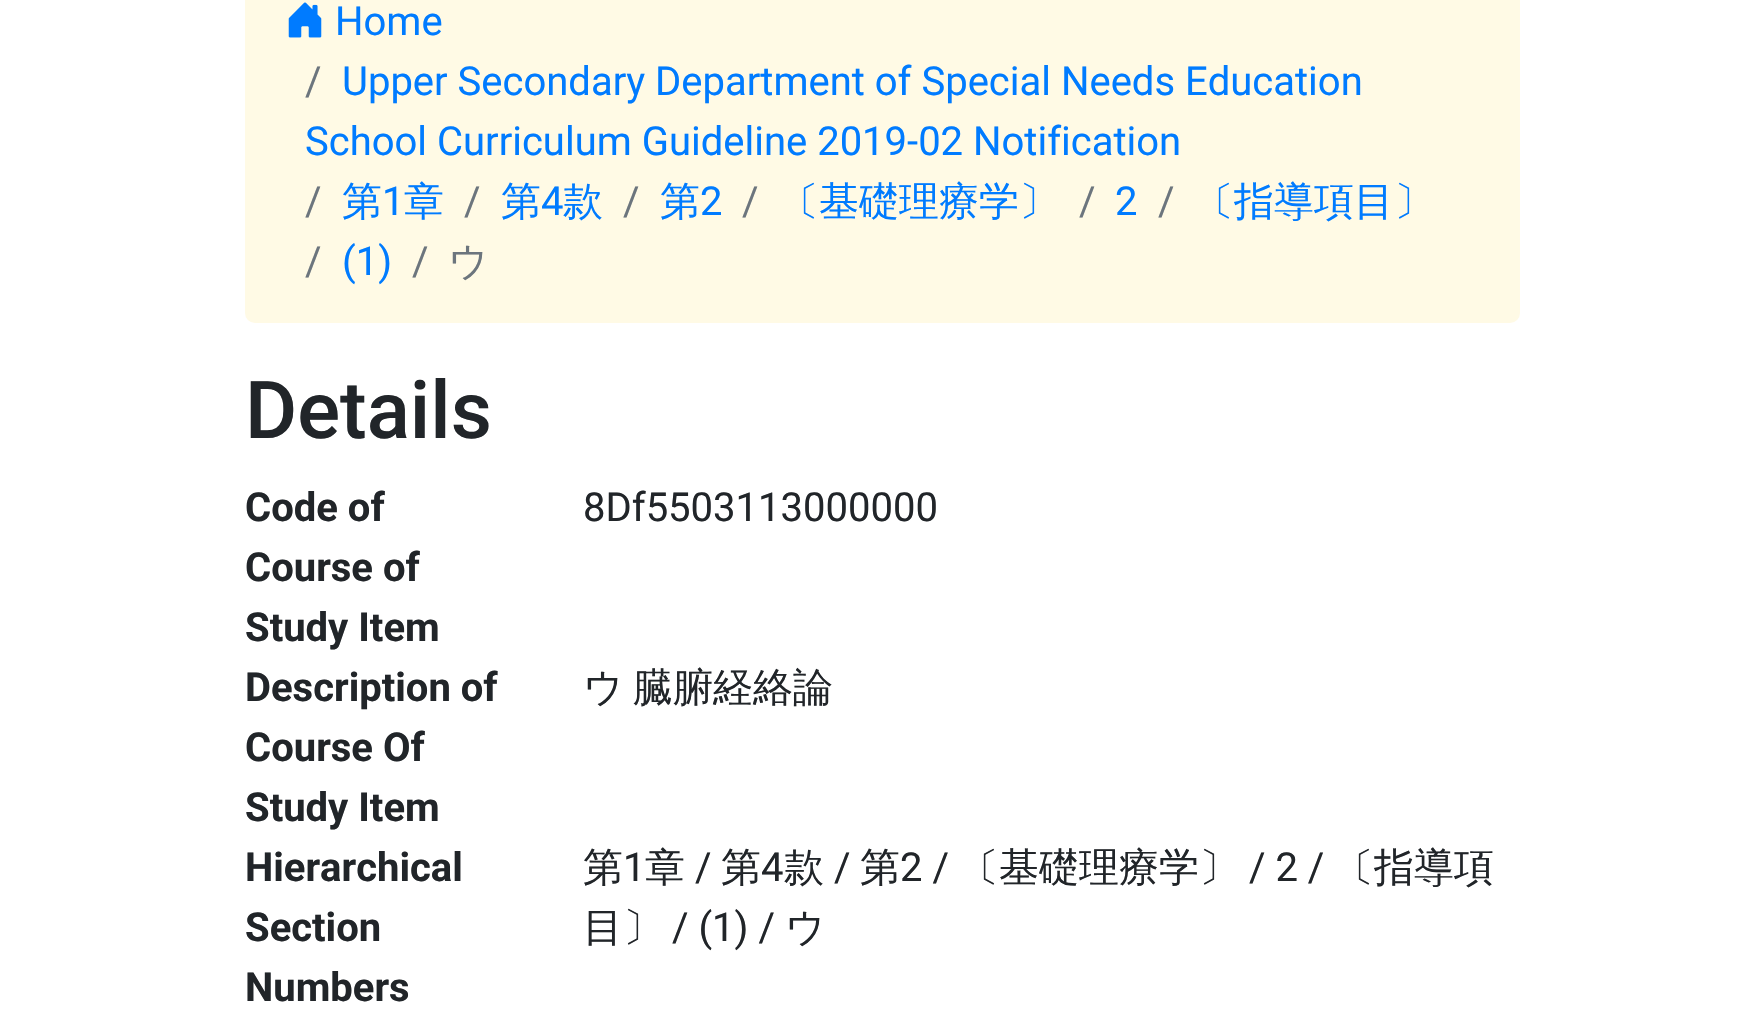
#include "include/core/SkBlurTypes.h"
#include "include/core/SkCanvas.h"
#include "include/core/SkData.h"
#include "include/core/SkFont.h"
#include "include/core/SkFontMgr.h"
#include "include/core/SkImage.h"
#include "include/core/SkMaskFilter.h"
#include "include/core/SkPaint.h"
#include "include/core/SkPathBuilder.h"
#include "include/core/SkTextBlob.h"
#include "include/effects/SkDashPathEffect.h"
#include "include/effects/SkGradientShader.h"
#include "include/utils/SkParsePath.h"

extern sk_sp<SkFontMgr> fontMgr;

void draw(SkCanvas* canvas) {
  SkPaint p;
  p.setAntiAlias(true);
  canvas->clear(SK_ColorWHITE);
  p.setColor(SkColorSetRGB(255, 250, 229));
  canvas->drawRoundRect(SkRect::MakeLTRB(245, -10, 1520, 323), 10, 10, p);
  canvas->drawImageRect(SkImages::DeferredFromEncodedData(SkData::MakeFromFileName("images/1.png")), SkRect::MakeLTRB(288, 2, 322, 38), SkSamplingOptions());
  SkFont font1(fontMgr->matchFamilyStyle("Roboto", SkFontStyle::Normal()), 40);
  font1.setSubpixel(true);
  p.setColor(SkColorSetRGB(0, 123, 255));
  canvas->drawString("Home", 335, 35, font1, p);
  p.setColor(SkColorSetRGB(108, 117, 125));
  canvas->drawString("/", 305, 95, font1, p);
  p.setColor(SkColorSetRGB(0, 123, 255));
  canvas->drawString("Upper Secondary Department of Special Needs Education", 342, 95, font1, p);
  canvas->drawString("School Curriculum Guideline 2019-02 Notification", 305, 155, font1, p);
  p.setColor(SkColorSetRGB(108, 117, 125));
  canvas->drawString("/", 305, 215, font1, p);
  SkFont font2(fontMgr->matchFamilyStyle("WenQuanYi Zen Hei", SkFontStyle(500, SkFontStyle::kNormal_Width, SkFontStyle::kUpright_Slant)), 40);
  font2.setSubpixel(true);
  p.setColor(SkColorSetRGB(0, 123, 255));
  canvas->drawString("第", 342, 215, font2, p);
  canvas->drawString("1", 382, 215, font1, p);
  canvas->drawString("章", 404, 215, font2, p);
  p.setColor(SkColorSetRGB(108, 117, 125));
  canvas->drawString("/", 464, 215, font1, p);
  p.setColor(SkColorSetRGB(0, 123, 255));
  canvas->drawString("第", 501, 215, font2, p);
  canvas->drawString("4", 541, 215, font1, p);
  canvas->drawString("款", 563, 215, font2, p);
  p.setColor(SkColorSetRGB(108, 117, 125));
  canvas->drawString("/", 623, 215, font1, p);
  p.setColor(SkColorSetRGB(0, 123, 255));
  canvas->drawString("第", 660, 215, font2, p);
  canvas->drawString("2", 700, 215, font1, p);
  p.setColor(SkColorSetRGB(108, 117, 125));
  canvas->drawString("/", 742, 215, font1, p);
  p.setColor(SkColorSetRGB(0, 123, 255));
  canvas->drawString("〔基礎理療学〕", 779, 215, font2, p);
  p.setColor(SkColorSetRGB(108, 117, 125));
  canvas->drawString("/", 1079, 215, font1, p);
  p.setColor(SkColorSetRGB(0, 123, 255));
  canvas->drawString("2", 1115, 215, font1, p);
  p.setColor(SkColorSetRGB(108, 117, 125));
  canvas->drawString("/", 1158, 215, font1, p);
  p.setColor(SkColorSetRGB(0, 123, 255));
  canvas->drawString("〔指導項目〕", 1194, 215, font2, p);
  p.setColor(SkColorSetRGB(108, 117, 125));
  canvas->drawString("/", 305, 275, font1, p);
  p.setColor(SkColorSetRGB(0, 123, 255));
  canvas->drawString("(1)", 342, 275, font1, p);
  p.setColor(SkColorSetRGB(108, 117, 125));
  canvas->drawString("/", 412, 275, font1, p);
  canvas->drawString("ウ", 448, 275, font2, p);
  SkFont font3(fontMgr->matchFamilyStyle("Roboto", SkFontStyle(500, SkFontStyle::kNormal_Width, SkFontStyle::kUpright_Slant)), 80);
  font3.setSubpixel(true);
  p.setColor(SkColorSetRGB(33, 37, 41));
  canvas->drawString("Details", 245, 438, font3, p);
  SkFont font4(fontMgr->matchFamilyStyle("Roboto", SkFontStyle::Bold()), 40);
  font4.setSubpixel(true);
  canvas->drawString("Code of", 245, 521, font4, p);
  canvas->drawString("Course of", 245, 581, font4, p);
  canvas->drawString("Study Item", 245, 641, font4, p);
  canvas->drawString("8Df5503113000000", 583, 521, font1, p);
  canvas->drawString("Description of", 245, 701, font4, p);
  canvas->drawString("Course Of", 245, 761, font4, p);
  canvas->drawString("Study Item", 245, 821, font4, p);
  canvas->drawString("ウ", 583, 701, font2, p);
  canvas->drawString("臓腑経絡論", 633, 701, font2, p);
  canvas->drawString("Hierarchical", 245, 881, font4, p);
  canvas->drawString("Section", 245, 941, font4, p);
  canvas->drawString("Numbers", 245, 1001, font4, p);
  canvas->drawString("第", 583, 881, font2, p);
  canvas->drawString("1", 623, 881, font1, p);
  canvas->drawString("章", 645, 881, font2, p);
  canvas->drawString("/", 695, 881, font1, p);
  canvas->drawString("第", 721, 881, font2, p);
  canvas->drawString("4", 761, 881, font1, p);
  canvas->drawString("款", 784, 881, font2, p);
  canvas->drawString("/", 834, 881, font1, p);
  canvas->drawString("第", 860, 881, font2, p);
  canvas->drawString("2 /", 900, 881, font1, p);
  canvas->drawString("〔基礎理療学〕", 959, 881, font2, p);
  canvas->drawString("/ 2 /", 1249, 881, font1, p);
  canvas->drawString("〔指導項", 1334, 881, font2, p);
  canvas->drawString("目〕", 583, 941, font2, p);
  canvas->drawString("/ (1) /", 672, 941, font1, p);
  canvas->drawString("ウ", 785, 941, font2, p);
}
